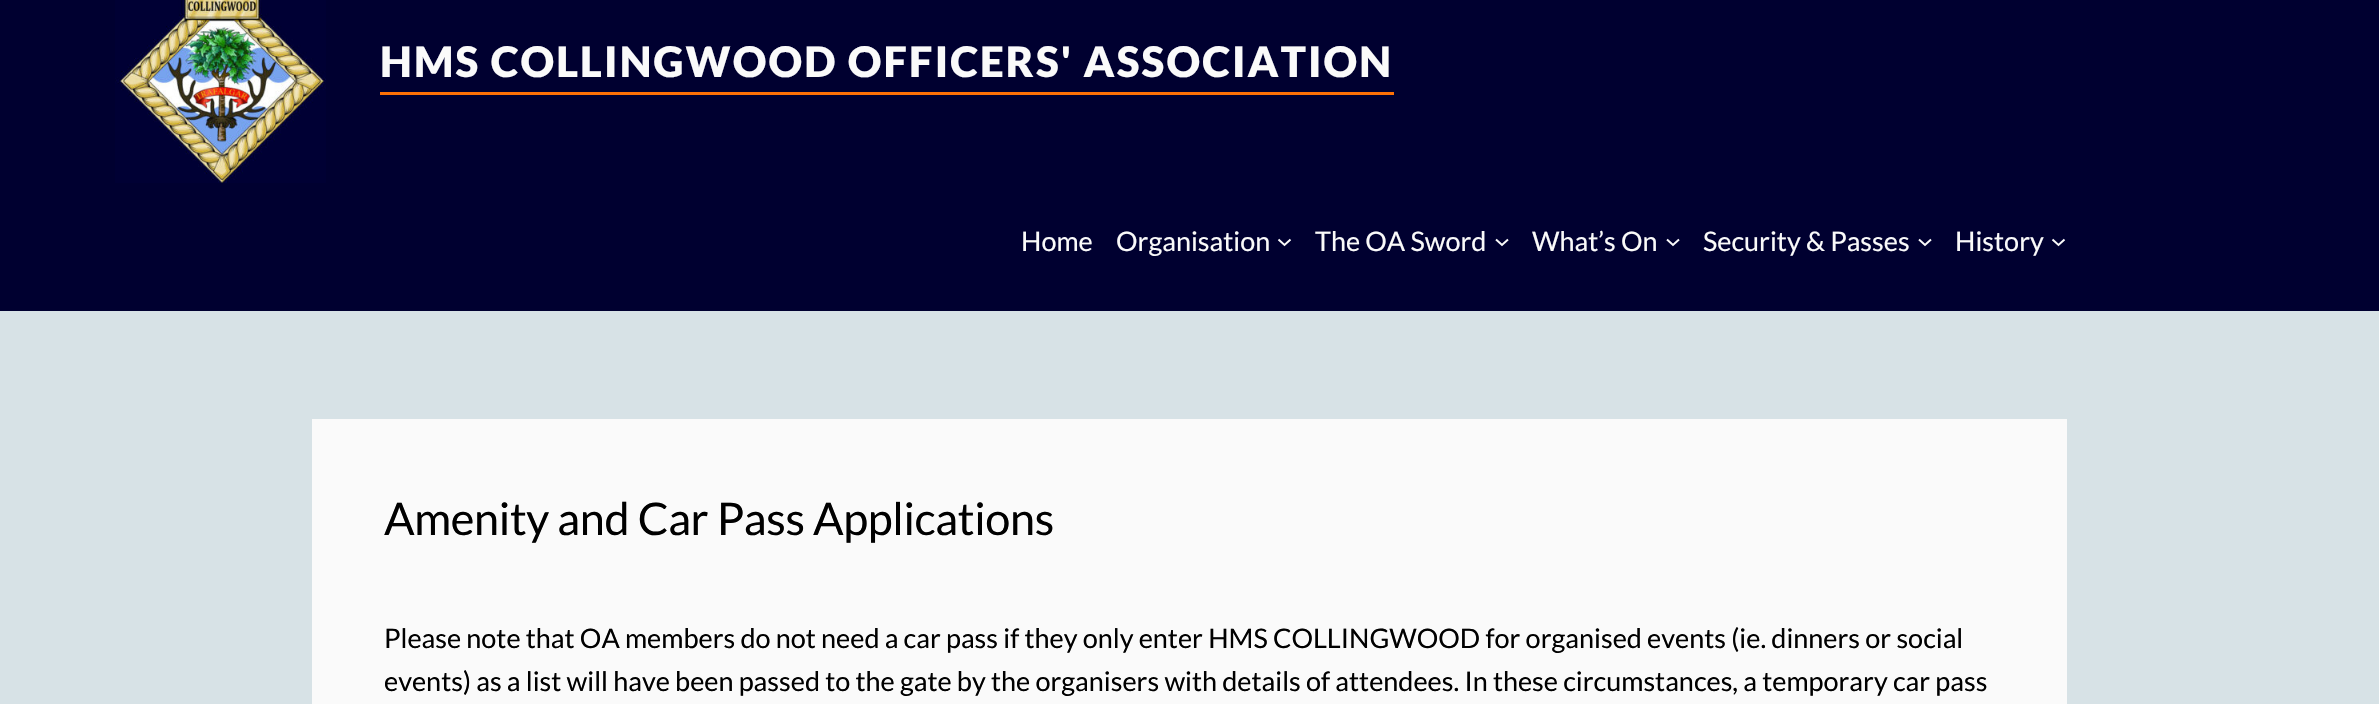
#include "include/core/SkBlurTypes.h"
#include "include/core/SkCanvas.h"
#include "include/core/SkData.h"
#include "include/core/SkFont.h"
#include "include/core/SkFontMgr.h"
#include "include/core/SkImage.h"
#include "include/core/SkMaskFilter.h"
#include "include/core/SkPaint.h"
#include "include/core/SkPathBuilder.h"
#include "include/core/SkTextBlob.h"
#include "include/effects/SkDashPathEffect.h"
#include "include/effects/SkGradientShader.h"
#include "include/utils/SkParsePath.h"

extern sk_sp<SkFontMgr> fontMgr;

void draw(SkCanvas* canvas) {
  SkPaint p;
  p.setAntiAlias(true);
  auto spacedText = [&](const char* s, float x, float y, const SkFont& font, const SkPaint& ink, float letter, float word) {
    std::vector<SkGlyphID> glyphs(font.countText(s, strlen(s), SkTextEncoding::kUTF8));
    std::vector<float> xs(glyphs.size());
    font.textToGlyphs(s, strlen(s), SkTextEncoding::kUTF8, glyphs);
    font.getXPos(glyphs, xs, x);
    float extra = 0;
    for (size_t i = 0; i < glyphs.size(); i++) {
      xs[i] += extra;
      extra += letter + word * (glyphs[i] == font.unicharToGlyph(' '));
    }
    canvas->drawTextBlob(SkTextBlob::MakeFromPosHGlyphs(glyphs, xs, y, font), 0, 0, ink);
  };
  canvas->clear(SK_ColorWHITE);
  {
    const SkColor colors[] = {SkColorSetRGB(250, 250, 250), SkColorSetRGB(250, 250, 250), SkColorSetRGB(215, 226, 230), SkColorSetRGB(215, 226, 230), SkColorSetRGB(250, 250, 250)};
    const float stops[] = {0, 0.13f, 0.13f, 0.3f, 1};
    const SkPoint ends[] = {{1189, -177}, {1190, 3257}};
    p.setShader(SkGradientShader::MakeLinear(ends, colors, stops, 5, SkTileMode::kClamp));
    p.setAlpha(255);
  }
  canvas->drawRect(SkRect::MakeLTRB(0, 311, 2379, 704), p);
  p.setShader(nullptr);
  p.setColor(SkColorSetRGB(0, 0, 48));
  canvas->drawRect(SkRect::MakeLTRB(0, 0, 2379, 311), p);
  canvas->drawImageRect(SkImages::DeferredFromEncodedData(SkData::MakeFromFileName("images/1.png")), SkRect::MakeLTRB(115, 0, 326, 183), SkSamplingOptions());
  p.setColor(SkColorSetRGB(253, 112, 5));
  canvas->drawRect(SkRect::MakeLTRB(380, 92, 1394, 95), p);
  p.setStyle(SkPaint::kStroke_Style);
  p.setStrokeWidth(2);
  p.setColor(SkColorSetRGB(250, 250, 250));
  canvas->drawPath(SkPathBuilder().moveTo(1278.5f, 239.5f).lineTo(1284.5f, 245).lineTo(1290.5f, 239.5f).detach(), p);
  canvas->drawPath(SkPathBuilder().moveTo(1496, 239.5f).lineTo(1502, 245).lineTo(1508, 239.5f).detach(), p);
  canvas->drawPath(SkPathBuilder().moveTo(1667, 239.5f).lineTo(1673, 245).lineTo(1679, 239.5f).detach(), p);
  canvas->drawPath(SkPathBuilder().moveTo(1919, 239.5f).lineTo(1925, 245).lineTo(1931, 239.5f).detach(), p);
  canvas->drawPath(SkPathBuilder().moveTo(2052.5f, 239.5f).lineTo(2058.5f, 245).lineTo(2064.5f, 239.5f).detach(), p);
  p.setStyle(SkPaint::kFill_Style);
  canvas->drawRect(SkRect::MakeLTRB(312, 419, 2067, 704), p);
  SkFont font1(fontMgr->matchFamilyStyle("Lato", SkFontStyle(900, SkFontStyle::kNormal_Width, SkFontStyle::kUpright_Slant)), 42);
  font1.setSubpixel(true);
  spacedText("HMS COLLINGWOOD OFFICERS' ASSOCIATION", 380, 77, font1, p, 2.15f, 0);
  SkFont font2(fontMgr->matchFamilyStyle("Lato", SkFontStyle::Normal()), 27);
  font2.setSubpixel(true);
  canvas->drawString("Home", 1021, 251, font2, p);
  canvas->drawString("Organisation", 1116, 251, font2, p);
  canvas->drawString("The OA Sword", 1315, 251, font2, p);
  canvas->drawString("What’s On", 1532, 251, font2, p);
  canvas->drawString("Security & Passes", 1703, 251, font2, p);
  canvas->drawString("History", 1955, 251, font2, p);
  SkFont font3(fontMgr->matchFamilyStyle("Lato", SkFontStyle::Normal()), 45);
  font3.setSubpixel(true);
  p.setColor(SK_ColorBLACK);
  spacedText("Amenity and Car Pass Applications", 384, 535, font3, p, -0.35f, 0);
  canvas->drawString("Please note that OA members do not need a car pass if they only enter HMS COLLINGWOOD for organised events (ie. dinners or social", 384, 648, font2, p);
  canvas->drawString("events) as a list will have been passed to the gate by the organisers with details of attendees. In these circumstances, a temporary car pass", 384, 691, font2, p);
}
